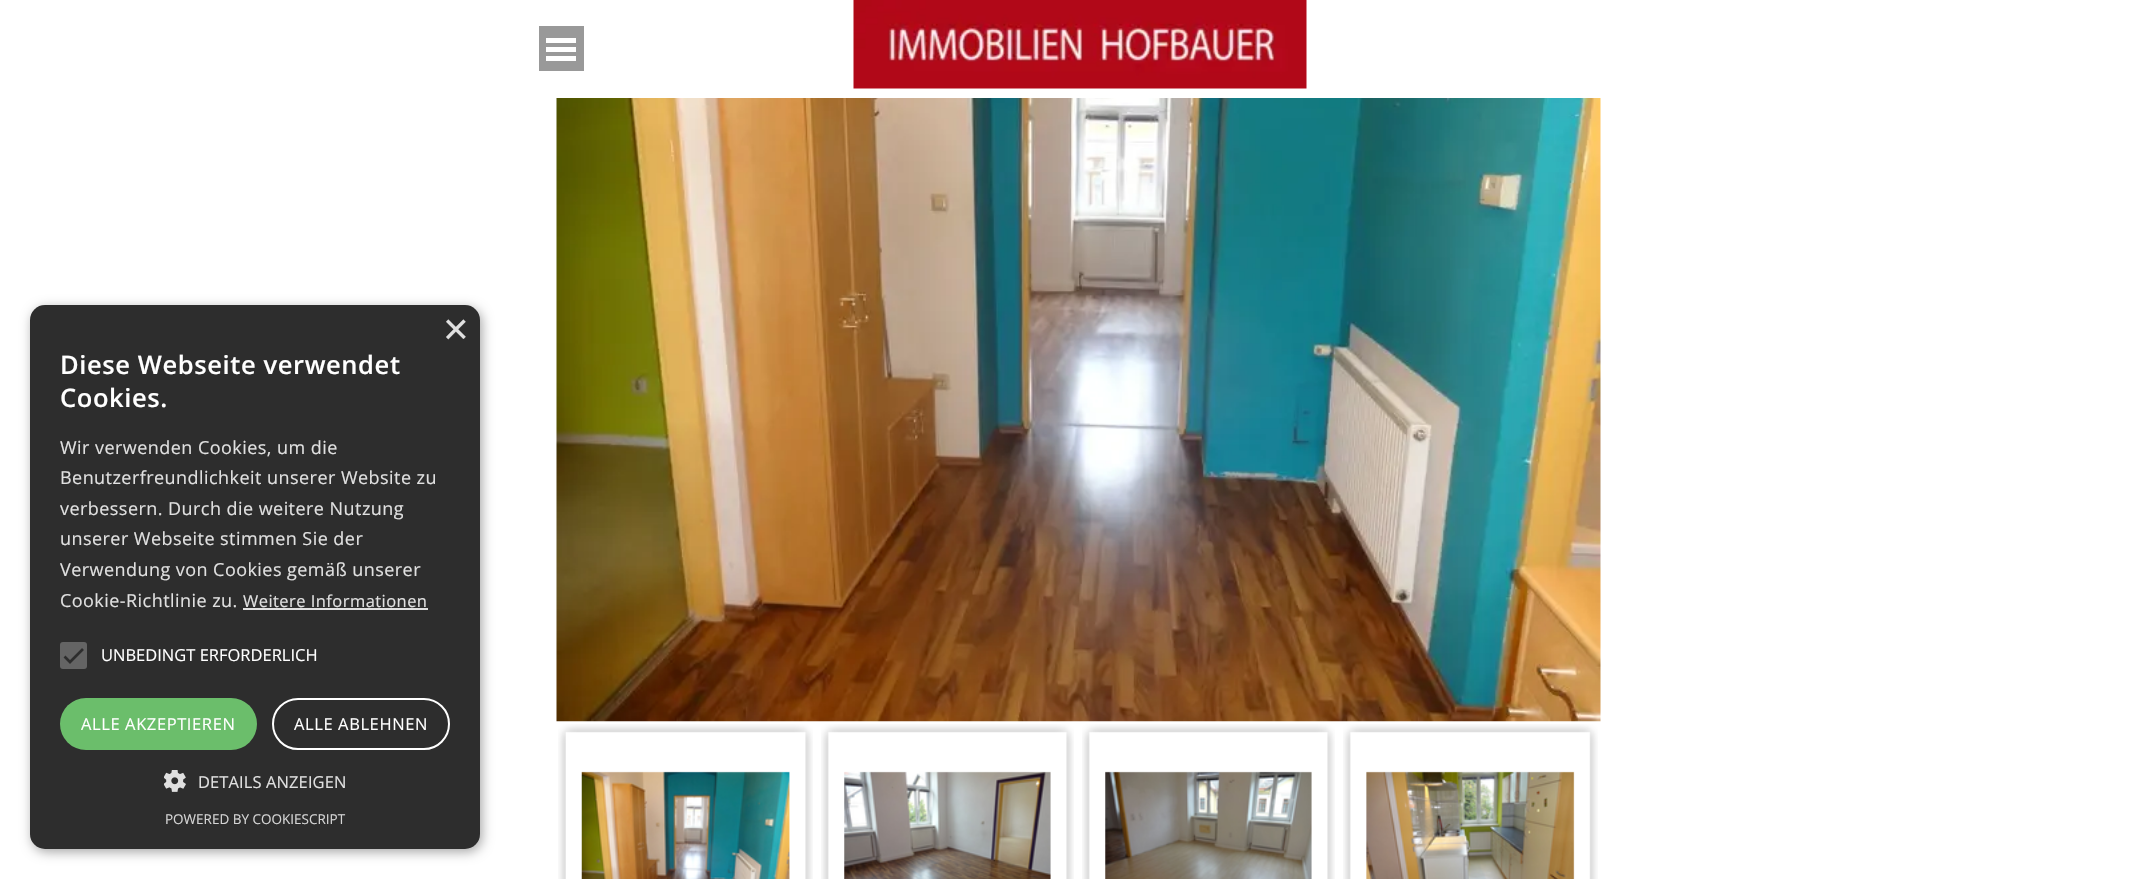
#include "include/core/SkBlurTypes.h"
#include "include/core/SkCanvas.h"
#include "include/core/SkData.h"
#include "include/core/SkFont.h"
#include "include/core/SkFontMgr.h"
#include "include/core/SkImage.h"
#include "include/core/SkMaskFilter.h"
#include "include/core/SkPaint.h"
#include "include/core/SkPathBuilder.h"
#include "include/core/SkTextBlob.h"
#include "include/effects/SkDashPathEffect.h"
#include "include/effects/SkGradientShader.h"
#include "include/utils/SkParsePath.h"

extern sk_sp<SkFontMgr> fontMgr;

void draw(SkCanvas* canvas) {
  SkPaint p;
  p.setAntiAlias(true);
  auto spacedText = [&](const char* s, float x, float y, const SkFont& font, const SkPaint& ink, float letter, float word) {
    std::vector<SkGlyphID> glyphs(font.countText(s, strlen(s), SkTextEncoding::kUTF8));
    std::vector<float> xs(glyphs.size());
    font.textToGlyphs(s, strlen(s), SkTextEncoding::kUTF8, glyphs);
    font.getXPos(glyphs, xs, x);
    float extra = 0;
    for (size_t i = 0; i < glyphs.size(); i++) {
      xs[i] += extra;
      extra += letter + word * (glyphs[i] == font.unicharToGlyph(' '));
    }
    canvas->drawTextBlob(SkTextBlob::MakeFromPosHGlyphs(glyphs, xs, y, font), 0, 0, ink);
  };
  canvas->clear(SK_ColorWHITE);
  p.setColor(SkColorSetARGB(89, 0, 0, 0));
  p.setMaskFilter(SkMaskFilter::MakeBlur(kNormal_SkBlurStyle, 6));
  canvas->drawRoundRect(SkRect::MakeLTRB(32, 308, 482, 852), 15, 15, p);
  p.setMaskFilter(nullptr);
  p.setColor(SkColorSetRGB(45, 45, 45));
  canvas->drawRoundRect(SkRect::MakeLTRB(30, 305, 480, 849), 15, 15, p);
  p.setColor(SkColorSetRGB(224, 224, 224));
  canvas->drawRect(SkRect::MakeLTRB(243, 608, 428, 610), p);
  p.setColor(SkColorSetRGB(100, 100, 100));
  canvas->drawRoundRect(SkRect::MakeLTRB(60, 642, 87, 669), 3, 3, p);
  p.setStyle(SkPaint::kStroke_Style);
  p.setStrokeWidth(2.7f);
  p.setColor(SkColorSetRGB(45, 45, 45));
  canvas->drawPath(SkPathBuilder().moveTo(64.5f, 656.5f).lineTo(70, 662).lineTo(83, 649).detach(), p);
  p.setStyle(SkPaint::kFill_Style);
  p.setColor(SkColorSetRGB(107, 190, 107));
  canvas->drawRoundRect(SkRect::MakeLTRB(60, 698, 257, 750), 26, 26, p);
  p.setStyle(SkPaint::kStroke_Style);
  p.setStrokeWidth(2);
  p.setColor(SK_ColorWHITE);
  canvas->drawRoundRect(SkRect::MakeLTRB(273, 699, 449, 749), 25, 25, p);
  canvas->drawImageRect(SkImages::DeferredFromEncodedData(SkData::MakeFromFileName("images/1.png")), SkRect::MakeLTRB(164, 770, 186, 792), SkSamplingOptions());
  p.setStyle(SkPaint::kFill_Style);
  p.setColor(SkColorSetRGB(153, 153, 153));
  canvas->drawRect(SkRect::MakeLTRB(539, 26, 584, 71), p);
  p.setColor(SK_ColorWHITE);
  canvas->drawRect(SkRect::MakeLTRB(546, 38, 576, 43), p);
  canvas->drawRect(SkRect::MakeLTRB(546, 47, 576, 52), p);
  canvas->drawRect(SkRect::MakeLTRB(546, 56, 576, 61), p);
  canvas->drawImageRect(SkImages::DeferredFromEncodedData(SkData::MakeFromFileName("images/2.png")), SkRect::MakeLTRB(853, 0, 1307, 89), SkSamplingOptions());
  canvas->drawImageRect(SkImages::DeferredFromEncodedData(SkData::MakeFromFileName("images/3.png")), SkRect::MakeLTRB(556, 98, 1601, 722), SkSamplingOptions());
  canvas->drawImageRect(SkImages::DeferredFromEncodedData(SkData::MakeFromFileName("images/4.png")), SkRect::MakeLTRB(558, 724, 813, 879), SkSamplingOptions());
  canvas->drawImageRect(SkImages::DeferredFromEncodedData(SkData::MakeFromFileName("images/5.png")), SkRect::MakeLTRB(821, 724, 1074, 879), SkSamplingOptions());
  canvas->drawImageRect(SkImages::DeferredFromEncodedData(SkData::MakeFromFileName("images/6.png")), SkRect::MakeLTRB(1082, 724, 1335, 879), SkSamplingOptions());
  canvas->drawImageRect(SkImages::DeferredFromEncodedData(SkData::MakeFromFileName("images/7.png")), SkRect::MakeLTRB(1343, 724, 1598, 879), SkSamplingOptions());
  SkFont font1(fontMgr->matchFamilyStyle("Liberation Sans", SkFontStyle::Normal()), 44);
  font1.setSubpixel(true);
  p.setColor(SkColorSetRGB(224, 224, 224));
  canvas->drawString("×", 443, 344, font1, p);
  SkFont font2(fontMgr->matchFamilyStyle("Open Sans", SkFontStyle(600, SkFontStyle::kNormal_Width, SkFontStyle::kUpright_Slant)), 25.5f);
  font2.setSubpixel(true);
  p.setColor(SK_ColorWHITE);
  spacedText("Diese Webseite verwendet", 60, 374, font2, p, 0.6f, 0);
  spacedText("Cookies.", 60, 407, font2, p, 0.6f, 0);
  SkFont font3(fontMgr->matchFamilyStyle("Open Sans", SkFontStyle::Normal()), 18);
  font3.setSubpixel(true);
  p.setColor(SkColorSetRGB(224, 224, 224));
  spacedText("Wir verwenden Cookies, um die", 60, 454, font3, p, 0.45f, 0);
  spacedText("Benutzerfreundlichkeit unserer Website zu", 60, 484, font3, p, 0.45f, 0);
  spacedText("verbessern. Durch die weitere Nutzung", 60, 515, font3, p, 0.45f, 0);
  spacedText("unserer Webseite stimmen Sie der", 60, 545, font3, p, 0.45f, 0);
  spacedText("Verwendung von Cookies gemäß unserer", 60, 576, font3, p, 0.45f, 0);
  spacedText("Cookie-Richtlinie zu.", 60, 607, font3, p, 0.45f, 0);
  SkFont font4(fontMgr->matchFamilyStyle("Open Sans", SkFontStyle::Normal()), 16.5f);
  font4.setSubpixel(true);
  spacedText("Weitere Informationen", 243, 607, font4, p, 0.45f, 0);
  p.setColor(SK_ColorWHITE);
  canvas->drawString("UNBEDINGT ERFORDERLICH", 101, 661, font4, p);
  spacedText("ALLE AKZEPTIEREN", 81, 730, font4, p, 0.6f, 0);
  spacedText("ALLE ABLEHNEN", 294, 730, font4, p, 0.6f, 0);
  p.setColor(SkColorSetRGB(224, 224, 224));
  spacedText("DETAILS ANZEIGEN", 198, 788, font4, p, 0.1f, 0);
  SkFont font5(fontMgr->matchFamilyStyle("Open Sans", SkFontStyle::Normal()), 13.5f);
  font5.setSubpixel(true);
  p.setColor(SkColorSetRGB(213, 213, 213));
  canvas->drawString("POWERED BY COOKIESCRIPT", 165, 824, font5, p);
}
